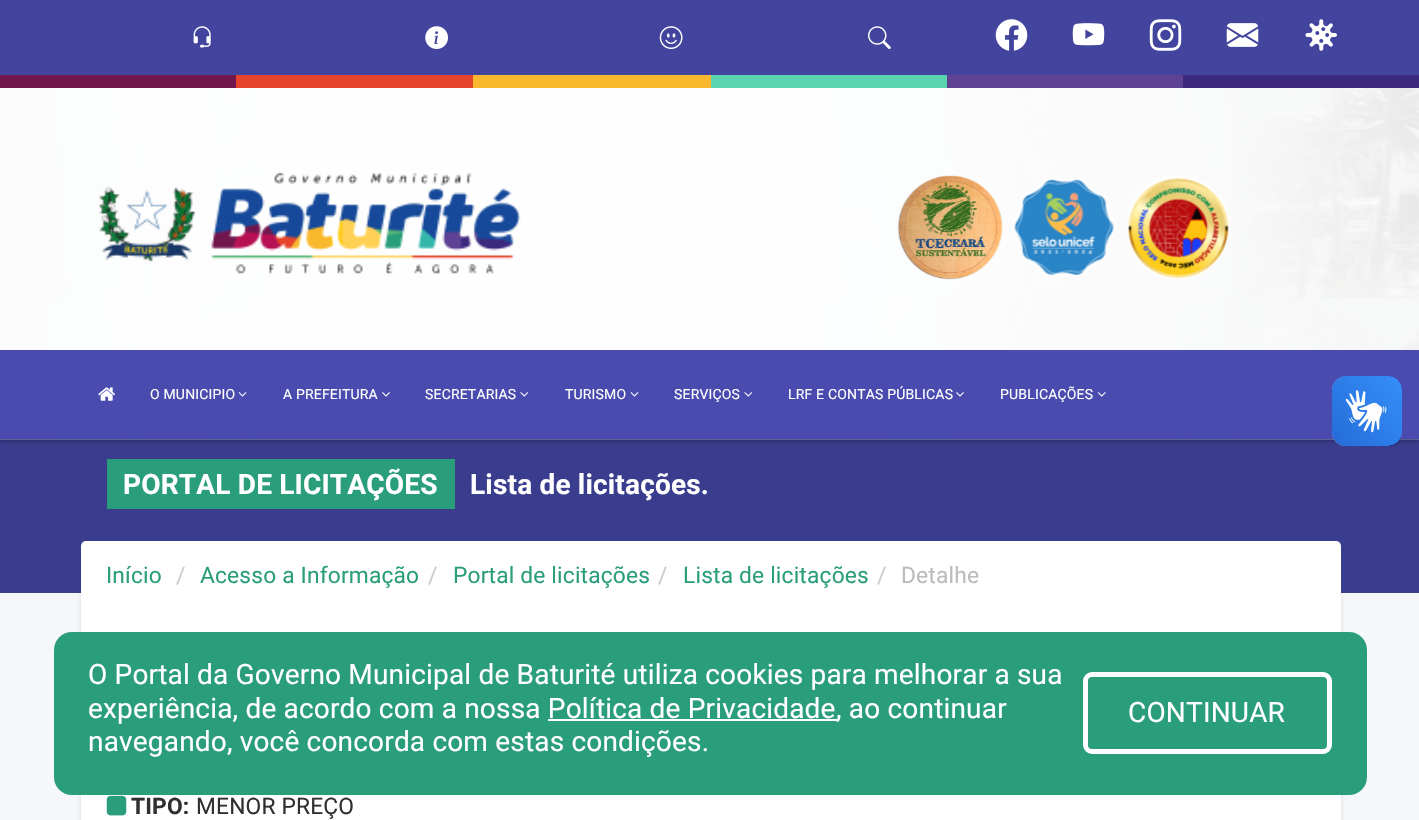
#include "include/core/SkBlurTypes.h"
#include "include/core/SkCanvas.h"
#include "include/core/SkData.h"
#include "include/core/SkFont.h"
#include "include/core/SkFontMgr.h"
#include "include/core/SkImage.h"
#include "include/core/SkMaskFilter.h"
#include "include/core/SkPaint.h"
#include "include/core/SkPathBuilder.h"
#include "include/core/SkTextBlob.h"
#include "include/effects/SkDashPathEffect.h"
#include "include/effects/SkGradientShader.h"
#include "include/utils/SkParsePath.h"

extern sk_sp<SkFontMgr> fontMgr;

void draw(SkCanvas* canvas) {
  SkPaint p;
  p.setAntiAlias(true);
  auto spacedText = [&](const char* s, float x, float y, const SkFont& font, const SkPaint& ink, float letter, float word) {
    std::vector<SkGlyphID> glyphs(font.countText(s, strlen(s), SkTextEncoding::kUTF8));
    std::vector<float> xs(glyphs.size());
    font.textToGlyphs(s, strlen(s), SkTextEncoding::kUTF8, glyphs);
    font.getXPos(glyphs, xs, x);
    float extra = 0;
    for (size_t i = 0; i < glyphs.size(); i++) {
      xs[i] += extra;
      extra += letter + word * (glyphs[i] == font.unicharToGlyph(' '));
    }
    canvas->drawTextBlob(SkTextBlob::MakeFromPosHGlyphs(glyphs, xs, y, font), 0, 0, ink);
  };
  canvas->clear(SkColorSetRGB(246, 247, 248));
  p.setColor(SkColorSetARGB(23, 3, 0, 71));
  p.setMaskFilter(SkMaskFilter::MakeBlur(kNormal_SkBlurStyle, 2.5f));
  canvas->drawRoundRect(SkRect::MakeLTRB(81, 543, 1341, 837), 9, 9, p);
  p.setMaskFilter(nullptr);
  p.setColor(SkColorSetRGB(58, 60, 141));
  canvas->drawRect(SkRect::MakeLTRB(0, 439, 1419, 593), p);
  p.setColor(SkColorSetARGB(77, 0, 0, 0));
  p.setMaskFilter(SkMaskFilter::MakeBlur(kNormal_SkBlurStyle, 2));
  canvas->drawRect(SkRect::MakeLTRB(0, 2, 1419, 441), p);
  p.setMaskFilter(nullptr);
  canvas->drawImageRect(SkImages::DeferredFromEncodedData(SkData::MakeFromFileName("images/1.png")), SkRect::MakeLTRB(0, 88, 1419, 440), SkSamplingOptions());
  p.setColor(SkColorSetRGB(66, 68, 158));
  canvas->drawRect(SkRect::MakeLTRB(0, 0, 1419, 75), p);
  canvas->drawImageRect(SkImages::DeferredFromEncodedData(SkData::MakeFromFileName("images/2.png")), SkRect::MakeLTRB(193, 26, 211, 48), SkSamplingOptions());
  canvas->drawImageRect(SkImages::DeferredFromEncodedData(SkData::MakeFromFileName("images/3.png")), SkRect::MakeLTRB(425, 26, 448, 49), SkSamplingOptions());
  canvas->drawImageRect(SkImages::DeferredFromEncodedData(SkData::MakeFromFileName("images/4.png")), SkRect::MakeLTRB(659, 26, 683, 49), SkSamplingOptions());
  canvas->drawImageRect(SkImages::DeferredFromEncodedData(SkData::MakeFromFileName("images/5.png")), SkRect::MakeLTRB(868, 26, 891, 49), SkSamplingOptions());
  canvas->drawImageRect(SkImages::DeferredFromEncodedData(SkData::MakeFromFileName("images/6.png")), SkRect::MakeLTRB(995, 19, 1028, 51), SkSamplingOptions());
  canvas->drawImageRect(SkImages::DeferredFromEncodedData(SkData::MakeFromFileName("images/7.png")), SkRect::MakeLTRB(1072, 23, 1105, 46), SkSamplingOptions());
  canvas->drawImageRect(SkImages::DeferredFromEncodedData(SkData::MakeFromFileName("images/8.png")), SkRect::MakeLTRB(1149, 19, 1182, 51), SkSamplingOptions());
  canvas->drawImageRect(SkImages::DeferredFromEncodedData(SkData::MakeFromFileName("images/9.png")), SkRect::MakeLTRB(1226, 23, 1259, 47), SkSamplingOptions());
  canvas->drawImageRect(SkImages::DeferredFromEncodedData(SkData::MakeFromFileName("images/10.png")), SkRect::MakeLTRB(1305, 19, 1337, 51), SkSamplingOptions());
  p.setColor(SkColorSetRGB(113, 23, 78));
  canvas->drawRect(SkRect::MakeLTRB(0, 75, 236, 88), p);
  p.setColor(SkColorSetRGB(230, 69, 43));
  canvas->drawRect(SkRect::MakeLTRB(236, 75, 473, 88), p);
  p.setColor(SkColorSetRGB(250, 184, 46));
  canvas->drawRect(SkRect::MakeLTRB(473, 75, 711, 88), p);
  p.setColor(SkColorSetRGB(90, 211, 175));
  canvas->drawRect(SkRect::MakeLTRB(711, 75, 947, 88), p);
  p.setColor(SkColorSetRGB(94, 66, 147));
  canvas->drawRect(SkRect::MakeLTRB(947, 75, 1183, 88), p);
  p.setColor(SkColorSetRGB(60, 40, 126));
  canvas->drawRect(SkRect::MakeLTRB(1183, 75, 1419, 88), p);
  canvas->drawImageRect(SkImages::DeferredFromEncodedData(SkData::MakeFromFileName("images/11.png")), SkRect::MakeLTRB(99, 172, 521, 274), SkSamplingOptions());
  canvas->drawImageRect(SkImages::DeferredFromEncodedData(SkData::MakeFromFileName("images/12.png")), SkRect::MakeLTRB(897, 175, 1003, 280), SkSamplingOptions());
  canvas->drawImageRect(SkImages::DeferredFromEncodedData(SkData::MakeFromFileName("images/13.png")), SkRect::MakeLTRB(1014, 179, 1114, 276), SkSamplingOptions());
  canvas->drawImageRect(SkImages::DeferredFromEncodedData(SkData::MakeFromFileName("images/14.png")), SkRect::MakeLTRB(1128, 176, 1230, 278), SkSamplingOptions());
  p.setColor(SkColorSetRGB(73, 75, 175));
  canvas->drawRect(SkRect::MakeLTRB(0, 350, 1419, 439), p);
  canvas->drawImageRect(SkImages::DeferredFromEncodedData(SkData::MakeFromFileName("images/15.png")), SkRect::MakeLTRB(98, 387, 115, 401), SkSamplingOptions());
  canvas->drawImageRect(SkImages::DeferredFromEncodedData(SkData::MakeFromFileName("images/16.png")), SkRect::MakeLTRB(238, 392, 247, 397), SkSamplingOptions());
  canvas->drawImageRect(SkImages::DeferredFromEncodedData(SkData::MakeFromFileName("images/17.png")), SkRect::MakeLTRB(382, 392, 390, 397), SkSamplingOptions());
  canvas->drawImageRect(SkImages::DeferredFromEncodedData(SkData::MakeFromFileName("images/18.png")), SkRect::MakeLTRB(520, 392, 529, 397), SkSamplingOptions());
  canvas->drawImageRect(SkImages::DeferredFromEncodedData(SkData::MakeFromFileName("images/16.png")), SkRect::MakeLTRB(630, 392, 639, 397), SkSamplingOptions());
  canvas->drawImageRect(SkImages::DeferredFromEncodedData(SkData::MakeFromFileName("images/18.png")), SkRect::MakeLTRB(744, 392, 753, 397), SkSamplingOptions());
  canvas->drawImageRect(SkImages::DeferredFromEncodedData(SkData::MakeFromFileName("images/17.png")), SkRect::MakeLTRB(956, 392, 964, 397), SkSamplingOptions());
  canvas->drawImageRect(SkImages::DeferredFromEncodedData(SkData::MakeFromFileName("images/19.png")), SkRect::MakeLTRB(1097, 392, 1106, 397), SkSamplingOptions());
  canvas->drawImageRect(SkImages::DeferredFromEncodedData(SkData::MakeFromFileName("images/20.png")), SkRect::MakeLTRB(1331, 376, 1402, 447), SkSamplingOptions());
  canvas->drawImageRect(SkImages::DeferredFromEncodedData(SkData::MakeFromFileName("images/21.png")), SkRect::MakeLTRB(1332, 376, 1402, 446), SkSamplingOptions());
  p.setColor(SkColorSetRGB(42, 158, 123));
  canvas->drawRect(SkRect::MakeLTRB(107, 459, 455, 509), p);
  p.setColor(SK_ColorWHITE);
  canvas->drawRect(SkRect::MakeLTRB(81, 606, 1341, 820), p);
  canvas->drawRoundRect(SkRect::MakeLTRB(81, 541, 1341, 611), 5, 5, p);
  canvas->drawImageRect(SkImages::DeferredFromEncodedData(SkData::MakeFromFileName("images/22.png")), SkRect::MakeLTRB(106, 795, 127, 816), SkSamplingOptions());
  p.setColor(SkColorSetRGB(42, 158, 123));
  canvas->drawRoundRect(SkRect::MakeLTRB(54, 632, 1367, 795), 18, 18, p);
  p.setColor(SK_ColorWHITE);
  canvas->drawRect(SkRect::MakeLTRB(548, 719, 837, 721), p);
  p.setStyle(SkPaint::kStroke_Style);
  p.setStrokeWidth(5);
  canvas->drawRoundRect(SkRect::MakeLTRB(1085.5f, 674.5f, 1329.5f, 751.5f), 6.5f, 6.5f, p);
  SkFont font1(fontMgr->matchFamilyStyle("Roboto", SkFontStyle::Normal()), 14);
  font1.setSubpixel(true);
  p.setStyle(SkPaint::kFill_Style);
  spacedText("O MUNICIPIO", 150, 399, font1, p, 0.18f, 0);
  spacedText("A PREFEITURA", 283, 399, font1, p, 0.18f, 0);
  spacedText("SECRETARIAS", 425, 399, font1, p, 0.18f, 0);
  spacedText("TURISMO", 565, 399, font1, p, 0.18f, 0);
  spacedText("SERVIÇOS", 674, 399, font1, p, 0.18f, 0);
  spacedText("LRF E CONTAS PÚBLICAS", 788, 399, font1, p, 0.18f, 0);
  spacedText("PUBLICAÇÕES", 1000, 399, font1, p, 0.18f, 0);
  SkFont font2(fontMgr->matchFamilyStyle("Roboto", SkFontStyle::Bold()), 28);
  font2.setSubpixel(true);
  spacedText("PORTAL DE LICITAÇÕES", 123, 494, font2, p, 0.18f, 0);
  spacedText("Lista de licitações.", 470, 494, font2, p, 0.18f, 0);
  SkFont font3(fontMgr->matchFamilyStyle("Roboto", SkFontStyle::Normal()), 22.75f);
  font3.setSubpixel(true);
  p.setColor(SkColorSetRGB(42, 158, 123));
  spacedText("Início", 106, 583, font3, p, 0.18f, 0);
  p.setColor(SkColorSetRGB(204, 204, 204));
  spacedText("/", 176, 583, font3, p, 0.18f, 0);
  p.setColor(SkColorSetRGB(42, 158, 123));
  spacedText("Acesso a Informação", 200, 583, font3, p, 0.18f, 0);
  p.setColor(SkColorSetRGB(204, 204, 204));
  spacedText("/", 428, 583, font3, p, 0.18f, 0);
  p.setColor(SkColorSetRGB(42, 158, 123));
  spacedText("Portal de licitações", 453, 583, font3, p, 0.18f, 0);
  p.setColor(SkColorSetRGB(204, 204, 204));
  spacedText("/", 658, 583, font3, p, 0.18f, 0);
  p.setColor(SkColorSetRGB(42, 158, 123));
  spacedText("Lista de licitações", 683, 583, font3, p, 0.18f, 0);
  p.setColor(SkColorSetRGB(204, 204, 204));
  spacedText("/", 877, 583, font3, p, 0.18f, 0);
  p.setColor(SkColorSetRGB(187, 187, 187));
  spacedText("Detalhe", 901, 583, font3, p, 0.18f, 0);
  SkFont font4(fontMgr->matchFamilyStyle("Roboto", SkFontStyle::Bold()), 22.75f);
  font4.setSubpixel(true);
  p.setColor(SkColorSetRGB(48, 48, 48));
  spacedText("TIPO:", 131, 814, font4, p, 0.18f, 0);
  spacedText("MENOR PREÇO", 196, 814, font3, p, 0.18f, 0);
  SkFont font5(fontMgr->matchFamilyStyle("Roboto", SkFontStyle::Normal()), 28);
  font5.setSubpixel(true);
  p.setColor(SK_ColorWHITE);
  spacedText("O Portal da Governo Municipal de Baturité utiliza cookies para melhorar a sua", 88, 684, font5, p, 0.18f, 0);
  spacedText("experiência, de acordo com a nossa Política de Privacidade", 88, 718, font5, p, 0.18f, 0);
  spacedText(", ao continuar", 836, 718, font5, p, 0.18f, 0);
  spacedText("navegando, você concorda com estas condições.", 88, 751, font5, p, 0.18f, 0);
  spacedText("CONTINUAR", 1128, 722, font5, p, 0.18f, 0);
}
